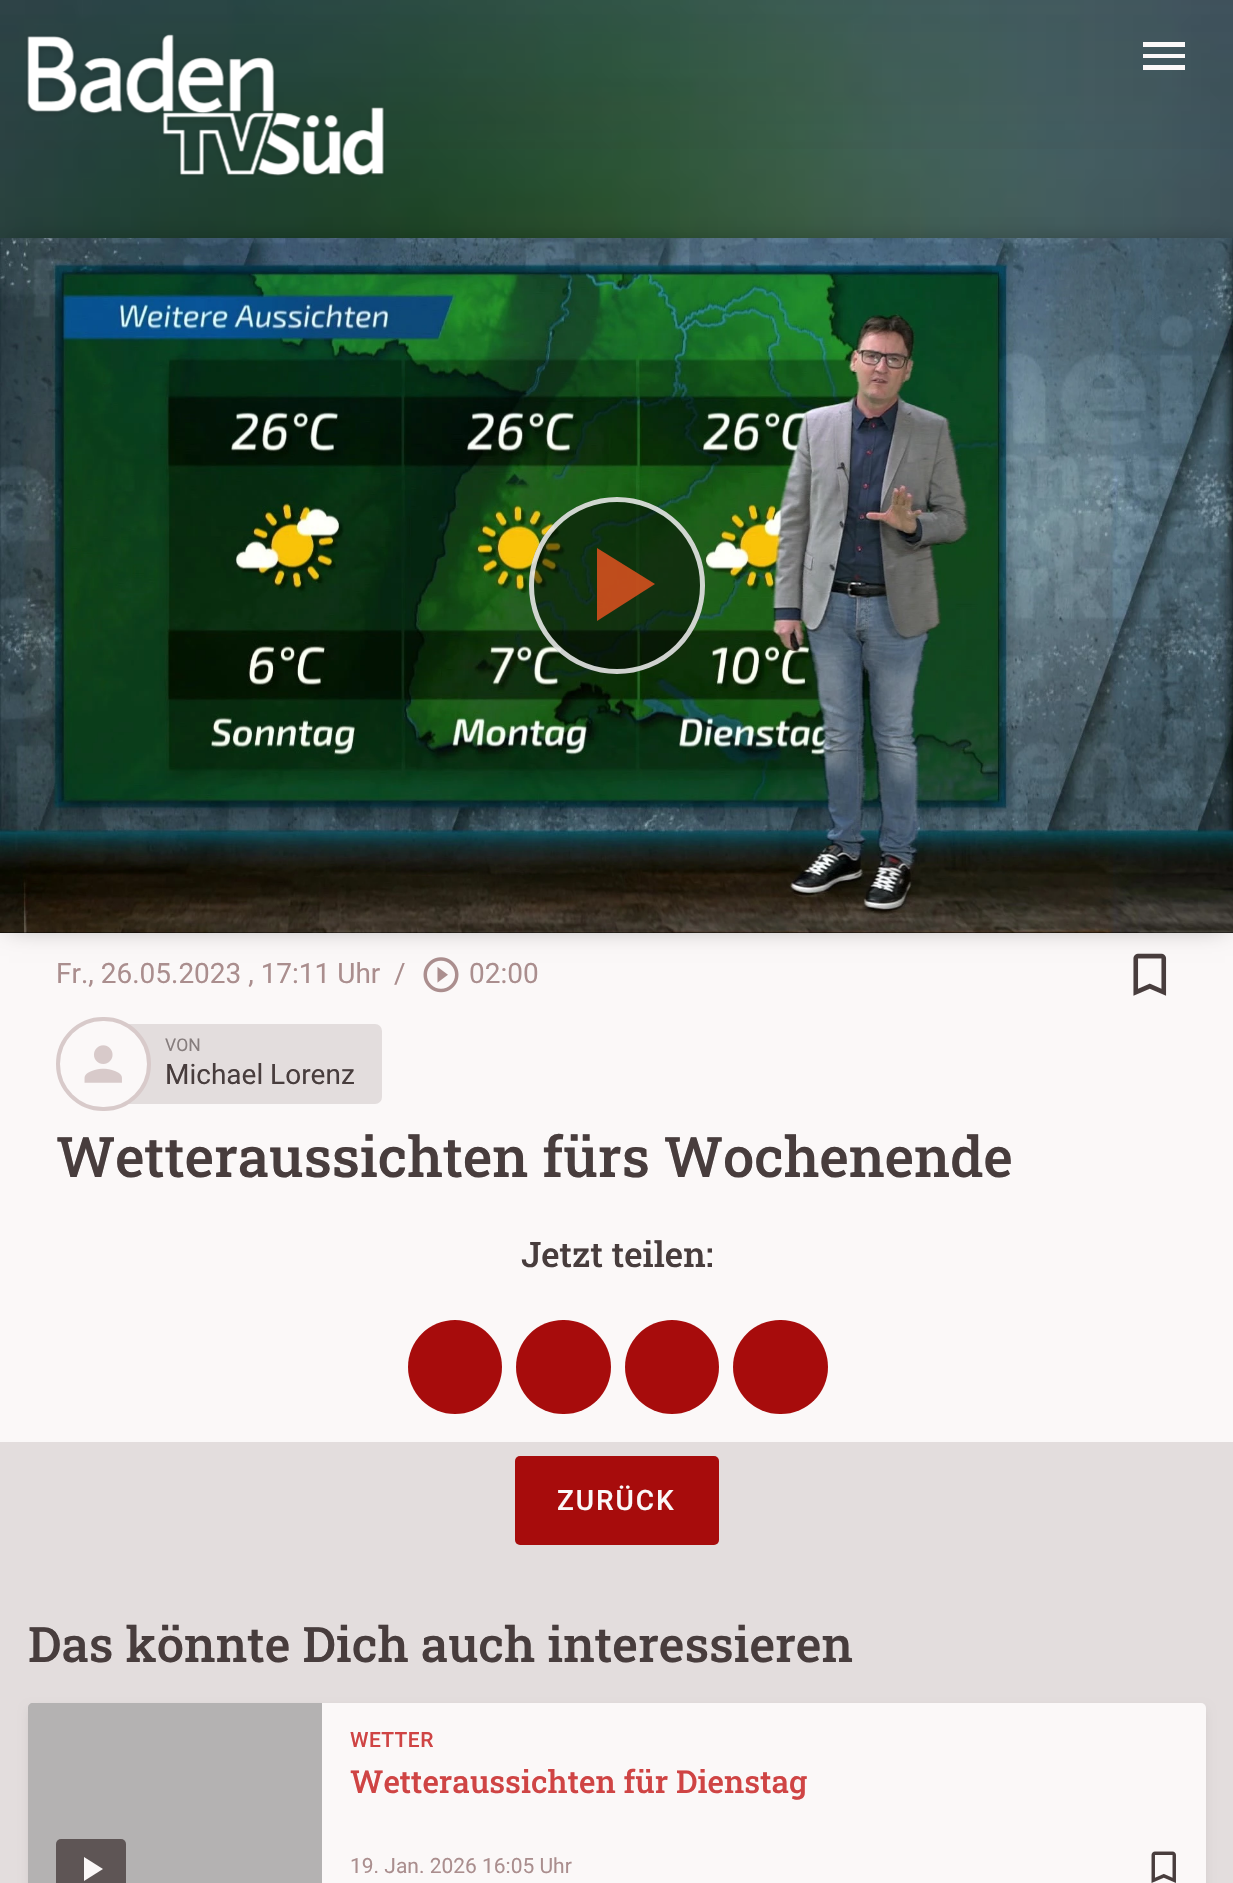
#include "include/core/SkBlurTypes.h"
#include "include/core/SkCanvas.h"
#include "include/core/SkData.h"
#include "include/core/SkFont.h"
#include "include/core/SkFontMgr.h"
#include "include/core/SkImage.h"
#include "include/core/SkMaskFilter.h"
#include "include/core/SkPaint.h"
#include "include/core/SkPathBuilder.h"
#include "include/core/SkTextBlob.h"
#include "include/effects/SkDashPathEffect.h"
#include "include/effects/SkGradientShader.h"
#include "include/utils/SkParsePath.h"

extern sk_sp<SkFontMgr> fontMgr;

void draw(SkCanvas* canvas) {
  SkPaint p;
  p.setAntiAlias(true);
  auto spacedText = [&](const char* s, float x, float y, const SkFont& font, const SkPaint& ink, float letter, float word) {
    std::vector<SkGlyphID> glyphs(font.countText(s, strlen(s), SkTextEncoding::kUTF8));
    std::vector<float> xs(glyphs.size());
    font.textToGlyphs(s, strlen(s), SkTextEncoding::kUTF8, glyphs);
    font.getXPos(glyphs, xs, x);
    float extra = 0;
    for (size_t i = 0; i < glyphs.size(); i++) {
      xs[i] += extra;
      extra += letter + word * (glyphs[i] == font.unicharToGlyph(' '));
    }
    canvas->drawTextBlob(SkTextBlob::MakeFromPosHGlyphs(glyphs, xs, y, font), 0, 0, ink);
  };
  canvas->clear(SkColorSetRGB(227, 221, 221));
  canvas->drawImageRect(SkImages::DeferredFromEncodedData(SkData::MakeFromFileName("images/2.png")), SkRect::MakeLTRB(0, 0, 1233, 238), SkSamplingOptions());
  {
    const SkColor colors[] = {SkColorSetARGB(0, 46, 36, 36), SkColorSetARGB(26, 46, 36, 36)};
    const float stops[] = {0, 1};
    const SkPoint ends[] = {{617, 238}, {617, 0}};
    p.setShader(SkGradientShader::MakeLinear(ends, colors, stops, 2, SkTileMode::kClamp));
    p.setAlpha(255);
  }
  canvas->drawRect(SkRect::MakeLTRB(0, 0, 1233, 149), p);
  canvas->drawImageRect(SkImages::DeferredFromEncodedData(SkData::MakeFromFileName("images/1.png")), SkRect::MakeLTRB(26, 34, 385, 177), SkSamplingOptions());
  p.setShader(nullptr);
  p.setColor(SkColorSetRGB(251, 248, 248));
  canvas->drawPath(SkPathBuilder().moveTo(1143, 42).lineTo(1185, 42).lineTo(1185, 47).lineTo(1143, 47).close().moveTo(1143, 58).lineTo(1143, 54).lineTo(1185, 54).lineTo(1185, 58).close().moveTo(1143, 70).lineTo(1143, 65).lineTo(1185, 65).lineTo(1185, 70).close().detach(), p);
  canvas->drawRect(SkRect::MakeLTRB(0, 933, 1233, 1442), p);
  canvas->drawImageRect(SkImages::DeferredFromEncodedData(SkData::MakeFromFileName("images/4.png")), SkRect::MakeLTRB(423, 957, 459, 993), SkSamplingOptions());
  canvas->drawImageRect(SkImages::DeferredFromEncodedData(SkData::MakeFromFileName("images/5.png")), SkRect::MakeLTRB(1133, 953, 1167, 996), SkSamplingOptions());
  p.setColor(SkColorSetARGB(102, 0, 0, 0));
  p.setMaskFilter(SkMaskFilter::MakeBlur(kNormal_SkBlurStyle, 13));
  canvas->drawRect(SkRect::MakeLTRB(9, 247, 1225, 924), p);
  p.setMaskFilter(nullptr);
  p.setColor(SK_ColorBLACK);
  canvas->drawRect(SkRect::MakeLTRB(0, 932, 1233, 933), p);
  canvas->drawImageRect(SkImages::DeferredFromEncodedData(SkData::MakeFromFileName("images/3.png")), SkRect::MakeLTRB(0, 238, 1233, 933), SkSamplingOptions());
  p.setColor(SkColorSetARGB(122, 0, 0, 0));
  canvas->drawRoundRect(SkRect::MakeLTRB(529, 497, 705, 674), 88, 88, p);
  p.setStyle(SkPaint::kStroke_Style);
  p.setStrokeWidth(5);
  p.setColor(SkColorSetARGB(204, 255, 255, 255));
  canvas->drawRoundRect(SkRect::MakeLTRB(531.5f, 499.5f, 702.5f, 671.5f), 85.5f, 85.5f, p);
  p.setStyle(SkPaint::kFill_Style);
  p.setColor(SkColorSetARGB(204, 234, 82, 31));
  canvas->drawPath(SkPathBuilder().moveTo(597, 548).lineTo(597, 621).lineTo(655, 584).close().detach(), p);
  p.setColor(SkColorSetRGB(227, 221, 221));
  canvas->drawRoundRect(SkRect::MakeLTRB(121, 1024, 382, 1104), 7, 7, p);
  p.setColor(SkColorSetRGB(251, 248, 248));
  canvas->drawRoundRect(SkRect::MakeLTRB(58, 1019, 149, 1109), 45, 45, p);
  p.setStyle(SkPaint::kStroke_Style);
  p.setStrokeWidth(4);
  p.setColor(SkColorSetRGB(216, 202, 202));
  canvas->drawRoundRect(SkRect::MakeLTRB(58, 1019, 149, 1109), 45, 45, p);
  canvas->drawImageRect(SkImages::DeferredFromEncodedData(SkData::MakeFromFileName("images/6.png")), SkRect::MakeLTRB(84, 1045, 122, 1083), SkSamplingOptions());
  p.setStyle(SkPaint::kFill_Style);
  p.setColor(SkColorSetRGB(167, 12, 12));
  canvas->drawCircle(455, 1367, 47, p);
  canvas->drawRoundRect(SkRect::MakeLTRB(516, 1320, 611, 1414), 47, 47, p);
  canvas->drawCircle(672, 1367, 47, p);
  canvas->drawRoundRect(SkRect::MakeLTRB(733, 1320, 828, 1414), 47, 47, p);
  canvas->drawRoundRect(SkRect::MakeLTRB(515, 1456, 719, 1545), 5, 5, p);
  p.setColor(SkColorSetARGB(18, 0, 0, 0));
  p.setMaskFilter(SkMaskFilter::MakeBlur(kNormal_SkBlurStyle, 5));
  canvas->drawRoundRect(SkRect::MakeLTRB(28, 1708, 1206, 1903), 5, 5, p);
  p.setMaskFilter(nullptr);
  p.setColor(SkColorSetRGB(251, 248, 248));
  canvas->drawRoundRect(SkRect::MakeLTRB(28, 1703, 1206, 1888), 5, 5, p);
  p.setColor(SkColorSetARGB(51, 0, 0, 0));
  canvas->drawPath(SkPathBuilder().moveTo(33, 1703).lineTo(322, 1703).lineTo(322, 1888).lineTo(33, 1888).cubicTo(30, 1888, 28, 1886, 28, 1883).lineTo(28, 1708).cubicTo(28, 1705, 30, 1703, 33, 1703).close().detach(), p);
  p.setColor(SkColorSetARGB(26, 0, 0, 0));
  canvas->drawPath(SkPathBuilder().moveTo(33, 1703).lineTo(322, 1703).lineTo(322, 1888).lineTo(33, 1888).cubicTo(30, 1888, 28, 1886, 28, 1883).lineTo(28, 1708).cubicTo(28, 1705, 30, 1703, 33, 1703).close().detach(), p);
  p.setColor(SkColorSetRGB(94, 85, 85));
  canvas->drawRoundRect(SkRect::MakeLTRB(56, 1839, 126, 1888), 5, 5, p);
  p.setColor(SkColorSetRGB(251, 248, 248));
  canvas->drawPath(SkPathBuilder().moveTo(84, 1857).lineTo(103, 1869).lineTo(84, 1881).close().detach(), p);
  canvas->drawImageRect(SkImages::DeferredFromEncodedData(SkData::MakeFromFileName("images/7.png")), SkRect::MakeLTRB(1151, 1851, 1176, 1883), SkSamplingOptions());
  SkFont font1(fontMgr->matchFamilyStyle("Roboto", SkFontStyle::Normal()), 28);
  font1.setSubpixel(true);
  p.setColor(SkColorSetRGB(170, 142, 142));
  canvas->drawString("Fr., 26.05.2023 , 17:11 Uhr", 56, 983, font1, p);
  canvas->drawString("/", 394, 983, font1, p);
  canvas->drawString("02:00", 469, 983, font1, p);
  SkFont font2(fontMgr->matchFamilyStyle("Roboto", SkFontStyle::Normal()), 17.5f);
  font2.setSubpixel(true);
  p.setColor(SkColorSetRGB(134, 125, 125));
  canvas->drawString("VON", 165, 1051, font2, p);
  p.setColor(SkColorSetRGB(72, 61, 61));
  canvas->drawString("Michael Lorenz", 165, 1084, font1, p);
  SkFont font3(fontMgr->matchFamilyStyle("Roboto Slab", SkFontStyle(500, SkFontStyle::kNormal_Width, SkFontStyle::kUpright_Slant)), 56);
  font3.setSubpixel(true);
  canvas->drawString("Wetteraussichten fürs Wochenende", 56, 1177, font3, p);
  SkFont font4(fontMgr->matchFamilyStyle("Roboto Slab", SkFontStyle(500, SkFontStyle::kNormal_Width, SkFontStyle::kUpright_Slant)), 35);
  font4.setSubpixel(true);
  canvas->drawString("Jetzt teilen:", 521, 1267, font4, p);
  SkFont font5(fontMgr->matchFamilyStyle("Roboto", SkFontStyle(500, SkFontStyle::kNormal_Width, SkFontStyle::kUpright_Slant)), 28);
  font5.setSubpixel(true);
  p.setColor(SkColorSetRGB(251, 248, 248));
  spacedText("ZURÜCK", 557, 1510, font5, p, 2, 0);
  SkFont font6(fontMgr->matchFamilyStyle("Roboto Slab", SkFontStyle(500, SkFontStyle::kNormal_Width, SkFontStyle::kUpright_Slant)), 49);
  font6.setSubpixel(true);
  p.setColor(SkColorSetRGB(72, 61, 61));
  canvas->drawString("Das könnte Dich auch interessieren", 28, 1662, font6, p);
  SkFont font7(fontMgr->matchFamilyStyle("Roboto", SkFontStyle(500, SkFontStyle::kNormal_Width, SkFontStyle::kUpright_Slant)), 21);
  font7.setSubpixel(true);
  p.setColor(SkColorSetRGB(207, 68, 68));
  spacedText("WETTER", 350, 1747, font7, p, 0.5f, 0);
  SkFont font8(fontMgr->matchFamilyStyle("Roboto Slab", SkFontStyle(500, SkFontStyle::kNormal_Width, SkFontStyle::kUpright_Slant)), 31.5f);
  font8.setSubpixel(true);
  canvas->drawString("Wetteraussichten für Dienstag", 350, 1793, font8, p);
  SkFont font9(fontMgr->matchFamilyStyle("Roboto", SkFontStyle::Normal()), 21);
  font9.setSubpixel(true);
  p.setColor(SkColorSetRGB(170, 142, 142));
  canvas->drawString("19. Jan. 2026 16:05 Uhr", 350, 1873, font9, p);
}
